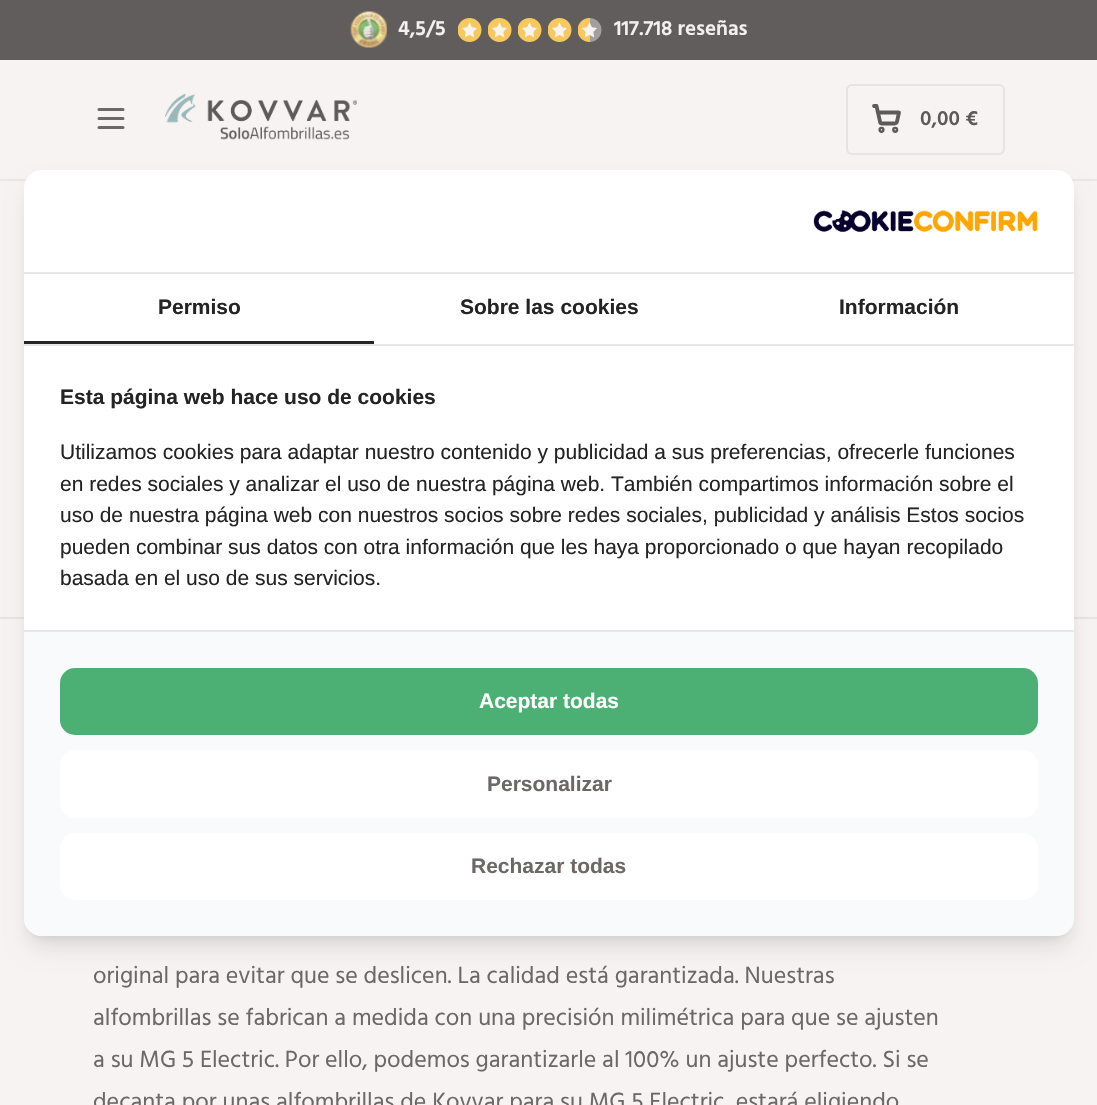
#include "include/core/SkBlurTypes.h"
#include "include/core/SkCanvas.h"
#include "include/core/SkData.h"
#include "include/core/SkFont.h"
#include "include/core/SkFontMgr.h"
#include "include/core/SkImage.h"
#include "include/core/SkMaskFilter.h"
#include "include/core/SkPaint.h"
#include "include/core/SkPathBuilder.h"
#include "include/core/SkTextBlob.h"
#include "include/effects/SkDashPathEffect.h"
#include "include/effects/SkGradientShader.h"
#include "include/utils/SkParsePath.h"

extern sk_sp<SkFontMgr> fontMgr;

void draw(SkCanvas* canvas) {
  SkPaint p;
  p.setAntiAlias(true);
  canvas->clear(SkColorSetRGB(247, 243, 243));
  p.setColor(SkColorSetRGB(233, 230, 230));
  canvas->drawRect(SkRect::MakeLTRB(0, 179, 1097, 181), p);
  p.setColor(SkColorSetRGB(97, 93, 93));
  canvas->drawRect(SkRect::MakeLTRB(0, 0, 1097, 60), p);
  canvas->drawImageRect(SkImages::DeferredFromEncodedData(SkData::MakeFromFileName("images/1.png")), SkRect::MakeLTRB(350, 11, 387, 48), SkSamplingOptions());
  canvas->drawImageRect(SkImages::DeferredFromEncodedData(SkData::MakeFromFileName("images/2.png")), SkRect::MakeLTRB(458, 18, 482, 42), SkSamplingOptions());
  canvas->drawImageRect(SkImages::DeferredFromEncodedData(SkData::MakeFromFileName("images/2.png")), SkRect::MakeLTRB(488, 18, 512, 42), SkSamplingOptions());
  canvas->drawImageRect(SkImages::DeferredFromEncodedData(SkData::MakeFromFileName("images/2.png")), SkRect::MakeLTRB(518, 18, 542, 42), SkSamplingOptions());
  canvas->drawImageRect(SkImages::DeferredFromEncodedData(SkData::MakeFromFileName("images/2.png")), SkRect::MakeLTRB(548, 18, 572, 42), SkSamplingOptions());
  canvas->drawImageRect(SkImages::DeferredFromEncodedData(SkData::MakeFromFileName("images/3.png")), SkRect::MakeLTRB(578, 18, 602, 42), SkSamplingOptions());
  p.setStyle(SkPaint::kStroke_Style);
  p.setStrokeWidth(3);
  p.setStrokeCap(SkPaint::kRound_Cap);
  p.setStrokeJoin(SkPaint::kRound_Join);
  p.setColor(SkColorSetRGB(108, 104, 104));
  canvas->drawPath(SkPathBuilder().moveTo(99, 118.5f).lineTo(123, 118.5f).moveTo(99, 109.5f).lineTo(123, 109.5f).moveTo(99, 127.5f).lineTo(123, 127.5f).detach(), p);
  canvas->drawImageRect(SkImages::DeferredFromEncodedData(SkData::MakeFromFileName("images/4.png")), SkRect::MakeLTRB(165, 94, 357, 140), SkSamplingOptions());
  p.setStrokeWidth(2);
  p.setStrokeCap(SkPaint::kButt_Cap);
  p.setStrokeJoin(SkPaint::kMiter_Join);
  p.setColor(SkColorSetRGB(230, 227, 227));
  canvas->drawRoundRect(SkRect::MakeLTRB(847, 85, 1004, 154), 5, 5, p);
  p.setStrokeWidth(3.8f);
  p.setColor(SkColorSetRGB(94, 90, 90));
  canvas->drawCircle(881.5f, 129.8f, 1.2f, p);
  canvas->drawCircle(895.2f, 129.8f, 1.2f, p);
  p.setStrokeCap(SkPaint::kRound_Cap);
  p.setStrokeJoin(SkPaint::kRound_Join);
  canvas->drawPath(SkPathBuilder().moveTo(874, 106).lineTo(876.5f, 106).lineTo(880, 121.5f).cubicTo(880, 123, 881, 123.5f, 882.5f, 123.5f).lineTo(894.5f, 123.5f).cubicTo(896, 123.5f, 897, 122.5f, 897, 121.5f).lineTo(899, 112.5f).lineTo(878, 112.5f).detach(), p);
  p.setStyle(SkPaint::kFill_Style);
  p.setColor(SkColorSetRGB(230, 227, 227));
  canvas->drawRect(SkRect::MakeLTRB(0, 617, 1097, 619), p);
  p.setColor(SkColorSetARGB(26, 0, 0, 0));
  p.setMaskFilter(SkMaskFilter::MakeBlur(kNormal_SkBlurStyle, 4.5f));
  canvas->drawRoundRect(SkRect::MakeLTRB(30, 182, 1068, 936), 12, 12, p);
  p.setMaskFilter(nullptr);
  p.setMaskFilter(SkMaskFilter::MakeBlur(kNormal_SkBlurStyle, 11));
  canvas->drawRoundRect(SkRect::MakeLTRB(29, 189, 1070, 947), 14, 14, p);
  p.setMaskFilter(nullptr);
  p.setColor(SK_ColorWHITE);
  canvas->drawRoundRect(SkRect::MakeLTRB(24, 170, 1074, 936), 18, 18, p);
  p.setColor(SkColorSetRGB(229, 231, 235));
  canvas->drawRect(SkRect::MakeLTRB(24, 272, 1074, 274), p);
  canvas->drawImageRect(SkImages::DeferredFromEncodedData(SkData::MakeFromFileName("images/5.png")), SkRect::MakeLTRB(813, 210, 1038, 232), SkSamplingOptions());
  canvas->drawRect(SkRect::MakeLTRB(24, 344, 1074, 346), p);
  p.setColor(SkColorSetRGB(36, 36, 36));
  canvas->drawRect(SkRect::MakeLTRB(24, 341, 374, 344), p);
  canvas->save();
  canvas->clipPath(SkPathBuilder().moveTo(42, 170).lineTo(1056, 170).cubicTo(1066, 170, 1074, 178, 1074, 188).lineTo(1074, 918).cubicTo(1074, 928, 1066, 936, 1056, 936).lineTo(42, 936).cubicTo(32, 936, 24, 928, 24, 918).lineTo(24, 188).cubicTo(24, 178, 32, 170, 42, 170).close().detach(), true);
  p.setColor(SK_ColorWHITE);
  p.setMaskFilter(SkMaskFilter::MakeBlur(kNormal_SkBlurStyle, 15));
  canvas->drawRect(SkRect::MakeLTRB(12, 588, 1086, 918), p);
  p.setMaskFilter(nullptr);
  canvas->restore();
  p.setColor(SkColorSetRGB(249, 250, 251));
  canvas->drawPath(SkPathBuilder().moveTo(24, 632).lineTo(1074, 632).lineTo(1074, 918).cubicTo(1074, 928, 1066, 936, 1056, 936).lineTo(42, 936).cubicTo(32, 936, 24, 928, 24, 918).close().detach(), p);
  p.setColor(SkColorSetRGB(229, 231, 235));
  canvas->drawRect(SkRect::MakeLTRB(24, 630, 1074, 632), p);
  p.setColor(SkColorSetRGB(76, 176, 117));
  canvas->drawRoundRect(SkRect::MakeLTRB(60, 668, 1038, 735), 15, 15, p);
  p.setColor(SK_ColorWHITE);
  canvas->drawRoundRect(SkRect::MakeLTRB(60, 750, 1038, 818), 15, 15, p);
  canvas->drawRoundRect(SkRect::MakeLTRB(60, 833, 1038, 900), 15, 15, p);
  SkFont font1(fontMgr->matchFamilyStyle("Hind", SkFontStyle(600, SkFontStyle::kNormal_Width, SkFontStyle::kUpright_Slant)), 21);
  font1.setSubpixel(true);
  p.setColor(SkColorSetRGB(243, 240, 241));
  canvas->drawString("4,5/5", 398, 35, font1, p);
  canvas->drawString("117.718 reseñas", 614, 35, font1, p);
  p.setColor(SkColorSetRGB(94, 90, 90));
  canvas->drawString("0,00 €", 920, 125, font1, p);
  SkFont font2(fontMgr->matchFamilyStyle("Liberation Sans", SkFontStyle::Bold()), 21);
  font2.setSubpixel(true);
  p.setColor(SkColorSetRGB(36, 36, 36));
  canvas->drawString("Permiso", 158, 314, font2, p);
  canvas->drawString("Sobre las cookies", 460, 314, font2, p);
  canvas->drawString("Información", 839, 314, font2, p);
  canvas->drawString("Esta página web hace uso de cookies", 60, 404, font2, p);
  SkFont font3(fontMgr->matchFamilyStyle("Liberation Sans", SkFontStyle::Normal()), 21);
  font3.setSubpixel(true);
  canvas->drawString("Utilizamos cookies para adaptar nuestro contenido y publicidad a sus preferencias, ofrecerle funciones", 60, 459, font3, p);
  canvas->drawString("en redes sociales y analizar el uso de nuestra página web. También compartimos información sobre el", 60, 491, font3, p);
  canvas->drawString("uso de nuestra página web con nuestros socios sobre redes sociales, publicidad y análisis Estos socios", 60, 522, font3, p);
  canvas->drawString("pueden combinar sus datos con otra información que les haya proporcionado o que hayan recopilado", 60, 554, font3, p);
  canvas->drawString("basada en el uso de sus servicios.", 60, 585, font3, p);
  p.setColor(SK_ColorWHITE);
  canvas->drawString("Aceptar todas", 479, 708, font2, p);
  p.setColor(SkColorSetRGB(108, 104, 104));
  canvas->drawString("Personalizar", 487, 791, font2, p);
  canvas->drawString("Rechazar todas", 471, 873, font2, p);
  SkFont font4(fontMgr->matchFamilyStyle("Hind", SkFontStyle::Normal()), 24);
  font4.setSubpixel(true);
  canvas->drawString("original para evitar que se deslicen. La calidad está garantizada. Nuestras", 93, 983, font4, p);
  canvas->drawString("alfombrillas se fabrican a medida con una precisión milimétrica para que se ajusten", 93, 1025, font4, p);
  canvas->drawString("a su MG 5 Electric. Por ello, podemos garantizarle al 100% un ajuste perfecto. Si se", 93, 1067, font4, p);
  canvas->drawString("decanta por unas alfombrillas de Kovvar para su MG 5 Electric, estará eligiendo", 93, 1109, font4, p);
}
